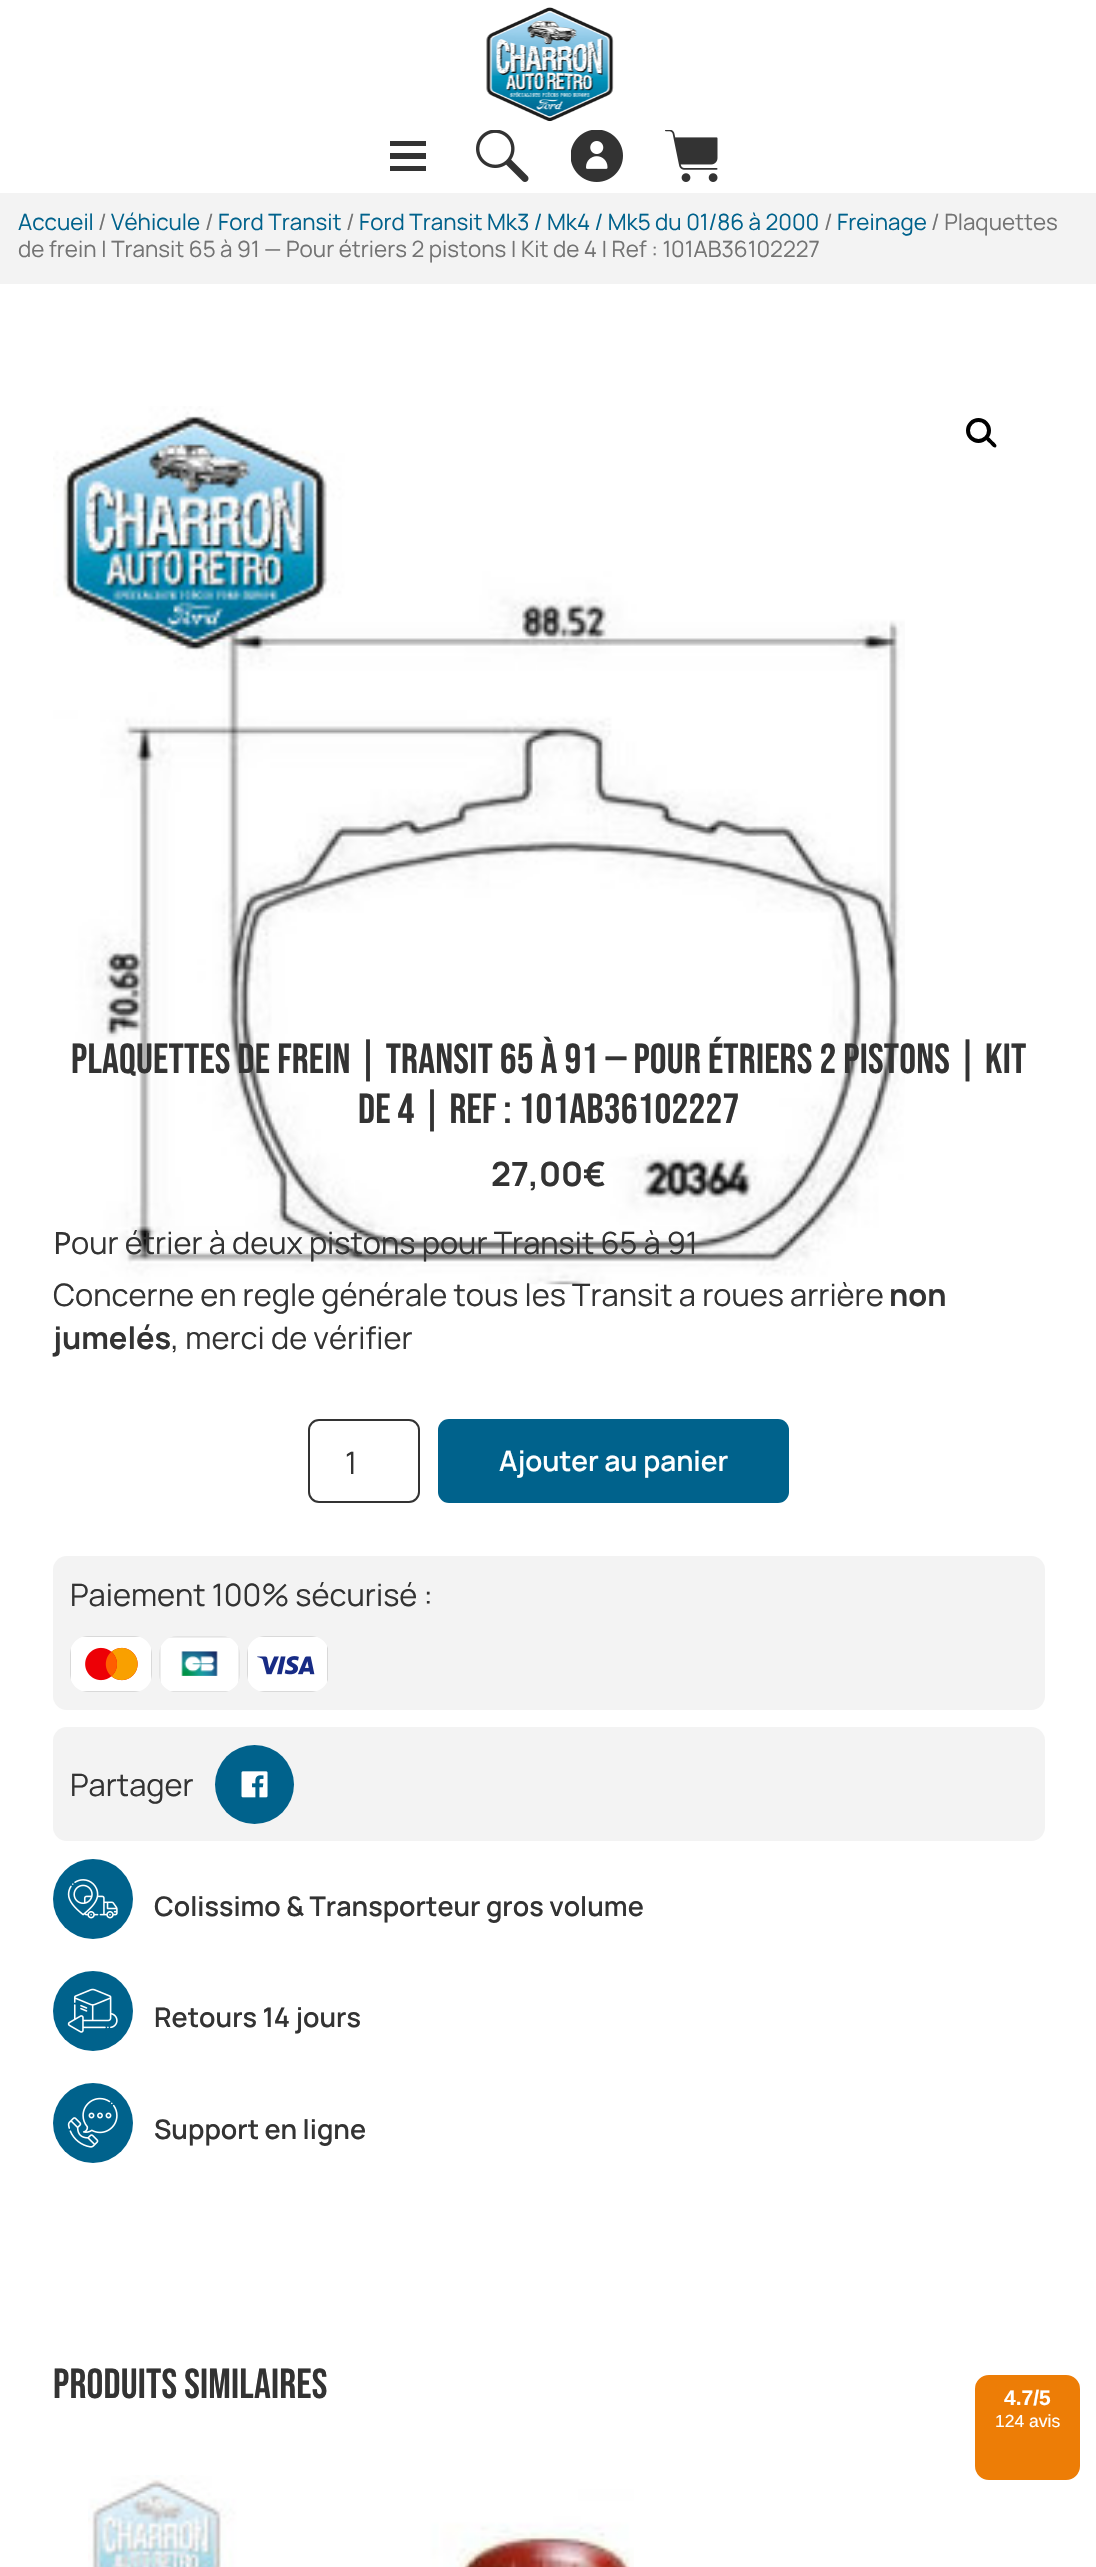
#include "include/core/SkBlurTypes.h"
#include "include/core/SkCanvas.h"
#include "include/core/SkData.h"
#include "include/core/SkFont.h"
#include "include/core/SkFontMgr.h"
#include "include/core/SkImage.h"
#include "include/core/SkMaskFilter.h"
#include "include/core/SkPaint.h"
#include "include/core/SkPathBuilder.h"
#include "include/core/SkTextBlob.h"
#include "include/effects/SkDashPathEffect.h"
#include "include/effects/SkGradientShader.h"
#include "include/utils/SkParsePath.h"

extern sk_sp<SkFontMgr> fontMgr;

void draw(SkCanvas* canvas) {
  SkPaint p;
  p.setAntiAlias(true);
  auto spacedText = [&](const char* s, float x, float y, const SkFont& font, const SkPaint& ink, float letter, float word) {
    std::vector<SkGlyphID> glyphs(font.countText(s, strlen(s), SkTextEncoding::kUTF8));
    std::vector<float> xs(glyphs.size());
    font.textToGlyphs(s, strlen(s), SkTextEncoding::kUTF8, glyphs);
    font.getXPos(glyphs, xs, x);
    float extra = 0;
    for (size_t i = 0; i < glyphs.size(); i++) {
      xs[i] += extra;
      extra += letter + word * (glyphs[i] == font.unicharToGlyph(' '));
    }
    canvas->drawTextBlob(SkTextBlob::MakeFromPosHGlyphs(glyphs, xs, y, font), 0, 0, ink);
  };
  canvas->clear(SK_ColorWHITE);
  canvas->drawImageRect(SkImages::DeferredFromEncodedData(SkData::MakeFromFileName("images/1.png")), SkRect::MakeLTRB(486, 7, 614, 122), SkSamplingOptions());
  p.setColor(SkColorSetRGB(51, 51, 51));
  canvas->drawRect(SkRect::MakeLTRB(390, 141, 426, 146), p);
  canvas->drawRect(SkRect::MakeLTRB(390, 153, 426, 159), p);
  canvas->drawRect(SkRect::MakeLTRB(390, 166, 426, 171), p);
  canvas->drawImageRect(SkImages::DeferredFromEncodedData(SkData::MakeFromFileName("images/2.png")), SkRect::MakeLTRB(476, 130, 529, 182), SkSamplingOptions());
  canvas->drawImageRect(SkImages::DeferredFromEncodedData(SkData::MakeFromFileName("images/3.png")), SkRect::MakeLTRB(571, 130, 623, 182), SkSamplingOptions());
  canvas->drawImageRect(SkImages::DeferredFromEncodedData(SkData::MakeFromFileName("images/4.png")), SkRect::MakeLTRB(665, 130, 718, 182), SkSamplingOptions());
  p.setColor(SkColorSetRGB(243, 243, 243));
  canvas->drawRect(SkRect::MakeLTRB(0, 193, 1096, 284), p);
  canvas->drawImageRect(SkImages::DeferredFromEncodedData(SkData::MakeFromFileName("images/5.png")), SkRect::MakeLTRB(53, 406, 905, 1285), SkSamplingOptions());
  p.setStyle(SkPaint::kStroke_Style);
  p.setStrokeWidth(4);
  p.setColor(SK_ColorBLACK);
  canvas->drawCircle(978.5f, 430.5f, 10.5f, p);
  p.setStyle(SkPaint::kFill_Style);
  canvas->drawPath(SkPathBuilder().moveTo(986.5f, 437.5f).cubicTo(988.5f, 435.5f, 991.5f, 440, 992.5f, 441).cubicTo(993.5f, 442, 998, 445, 996, 447).cubicTo(994, 449, 991, 444.5f, 990, 443.5f).cubicTo(989, 442.5f, 984.5f, 439.5f, 986.5f, 437.5f).close().detach(), p);
  p.setStyle(SkPaint::kStroke_Style);
  p.setStrokeWidth(2);
  p.setColor(SkColorSetRGB(51, 51, 51));
  canvas->drawRoundRect(SkRect::MakeLTRB(309, 1420, 419, 1502), 10, 10, p);
  p.setStyle(SkPaint::kFill_Style);
  p.setColor(SkColorSetRGB(0, 98, 140));
  canvas->drawRoundRect(SkRect::MakeLTRB(438, 1419, 789, 1503), 11, 11, p);
  p.setColor(SkColorSetRGB(243, 243, 243));
  canvas->drawRoundRect(SkRect::MakeLTRB(53, 1556, 1045, 1710), 14, 14, p);
  canvas->drawImageRect(SkImages::DeferredFromEncodedData(SkData::MakeFromFileName("images/6.png")), SkRect::MakeLTRB(70, 1636, 152, 1692), SkSamplingOptions());
  canvas->drawImageRect(SkImages::DeferredFromEncodedData(SkData::MakeFromFileName("images/7.png")), SkRect::MakeLTRB(159, 1636, 240, 1692), SkSamplingOptions());
  canvas->drawImageRect(SkImages::DeferredFromEncodedData(SkData::MakeFromFileName("images/8.png")), SkRect::MakeLTRB(247, 1636, 328, 1692), SkSamplingOptions());
  canvas->drawRoundRect(SkRect::MakeLTRB(53, 1727, 1045, 1841), 14, 14, p);
  p.setColor(SkColorSetRGB(0, 98, 140));
  canvas->drawCircle(254.5f, 1784.5f, 39.5f, p);
  canvas->drawImageRect(SkImages::DeferredFromEncodedData(SkData::MakeFromFileName("images/9.png")), SkRect::MakeLTRB(241, 1771, 268, 1798), SkSamplingOptions());
  canvas->drawCircle(93, 1899, 40, p);
  canvas->drawImageRect(SkImages::DeferredFromEncodedData(SkData::MakeFromFileName("images/10.png")), SkRect::MakeLTRB(67, 1879, 118, 1919), SkSamplingOptions());
  canvas->drawCircle(93, 2011, 40, p);
  canvas->drawImageRect(SkImages::DeferredFromEncodedData(SkData::MakeFromFileName("images/11.png")), SkRect::MakeLTRB(67, 1988, 118, 2033), SkSamplingOptions());
  canvas->drawCircle(93, 2123, 40, p);
  canvas->drawImageRect(SkImages::DeferredFromEncodedData(SkData::MakeFromFileName("images/12.png")), SkRect::MakeLTRB(67, 2097, 118, 2148), SkSamplingOptions());
  canvas->drawImageRect(SkImages::DeferredFromEncodedData(SkData::MakeFromFileName("images/13.png")), SkRect::MakeLTRB(88, 2475, 634, 2567), SkSamplingOptions());
  p.setColor(SkColorSetRGB(237, 125, 6));
  canvas->drawRoundRect(SkRect::MakeLTRB(976, 2376, 1079, 2479), 13, 13, p);
  p.setStyle(SkPaint::kStroke_Style);
  canvas->drawRoundRect(SkRect::MakeLTRB(976, 2376, 1079, 2479), 13, 13, p);
  SkFont font1(fontMgr->matchFamilyStyle("Manrope", SkFontStyle::Normal()), 22.4f);
  font1.setSubpixel(true);
  p.setStyle(SkPaint::kFill_Style);
  p.setColor(SkColorSetRGB(0, 98, 140));
  canvas->drawString("Accueil", 18, 230, font1, p);
  p.setColor(SkColorSetRGB(115, 115, 115));
  canvas->drawString("/", 98, 230, font1, p);
  p.setColor(SkColorSetRGB(0, 98, 140));
  canvas->drawString("Véhicule", 111, 230, font1, p);
  p.setColor(SkColorSetRGB(115, 115, 115));
  canvas->drawString("/", 205, 230, font1, p);
  p.setColor(SkColorSetRGB(0, 98, 140));
  canvas->drawString("Ford Transit", 218, 230, font1, p);
  p.setColor(SkColorSetRGB(115, 115, 115));
  canvas->drawString("/", 346, 230, font1, p);
  p.setColor(SkColorSetRGB(0, 98, 140));
  canvas->drawString("Ford Transit Mk3 / Mk4 / Mk5 du 01/86 à 2000", 359, 230, font1, p);
  p.setColor(SkColorSetRGB(115, 115, 115));
  canvas->drawString("/", 824, 230, font1, p);
  p.setColor(SkColorSetRGB(0, 98, 140));
  canvas->drawString("Freinage", 837, 230, font1, p);
  p.setColor(SkColorSetRGB(115, 115, 115));
  canvas->drawString("/ Plaquettes", 931, 230, font1, p);
  canvas->drawString("de frein | Transit 65 à 91 — Pour étriers 2 pistons | Kit de 4 | Ref : 101AB36102227", 18, 257, font1, p);
  SkFont font2(fontMgr->matchFamilyStyle("Bebas Neue", SkFontStyle::Normal()), 42);
  font2.setSubpixel(true);
  p.setColor(SkColorSetRGB(51, 51, 51));
  spacedText("Plaquettes de frein | Transit 65 à 91 — Pour étriers 2 pistons | Kit", 71, 1073, font2, p, 0.18f, 0);
  spacedText("de 4 | Ref : 101AB36102227", 358, 1123, font2, p, 0.18f, 0);
  SkFont font3(fontMgr->matchFamilyStyle("Manrope", SkFontStyle::Bold()), 33.5f);
  font3.setSubpixel(true);
  canvas->drawString("27,00€", 491, 1186, font3, p);
  SkFont font4(fontMgr->matchFamilyStyle("Manrope", SkFontStyle::Normal()), 30.8f);
  font4.setSubpixel(true);
  canvas->drawString("our étrier à deux pistons pour Transit 65 à 91", 71, 1254, font4, p);
  canvas->drawString("Concerne en regle générale tous les Transit a roues arrière", 53, 1306, font4, p);
  SkFont font5(fontMgr->matchFamilyStyle("Manrope", SkFontStyle::Bold()), 30.8f);
  font5.setSubpixel(true);
  canvas->drawString("non", 889, 1306, font5, p);
  canvas->drawString("jumelés", 53, 1349, font5, p);
  canvas->drawString(", merci de vérifier", 171, 1349, font4, p);
  SkFont font6(fontMgr->matchFamilyStyle("Noto Sans", SkFontStyle::Normal()), 30.8f);
  font6.setSubpixel(true);
  canvas->drawString("P", 53, 1254, font6, p);
  canvas->drawString("1", 345, 1474, font4, p);
  SkFont font7(fontMgr->matchFamilyStyle("Manrope", SkFontStyle(600, SkFontStyle::kNormal_Width, SkFontStyle::kUpright_Slant)), 28);
  font7.setSubpixel(true);
  p.setColor(SK_ColorWHITE);
  canvas->drawString("Ajouter au panier", 499, 1471, font7, p);
  p.setColor(SkColorSetRGB(51, 51, 51));
  canvas->drawString("Paiement 100% sécurisé :", 70, 1606, font4, p);
  canvas->drawString("Partager", 70, 1796, font4, p);
  SkFont font8(fontMgr->matchFamilyStyle("Manrope", SkFontStyle(600, SkFontStyle::kNormal_Width, SkFontStyle::kUpright_Slant)), 27);
  font8.setSubpixel(true);
  canvas->drawString("Colissimo & Transporteur gros volume", 154, 1916, font8, p);
  canvas->drawString("Retours 14 jours", 154, 2027, font8, p);
  canvas->drawString("Support en ligne", 154, 2139, font8, p);
  spacedText("Produits similaires", 53, 2398, font2, p, 0.18f, 0);
  SkFont font9(fontMgr->matchFamilyStyle("Liberation Sans", SkFontStyle::Bold()), 21);
  font9.setSubpixel(true);
  p.setColor(SK_ColorWHITE);
  canvas->drawString("4.7/5", 1004, 2405, font9, p);
  SkFont font10(fontMgr->matchFamilyStyle("Liberation Sans", SkFontStyle::Normal()), 17.5f);
  font10.setSubpixel(true);
  canvas->drawString("124 avis", 995, 2427, font10, p);
}
